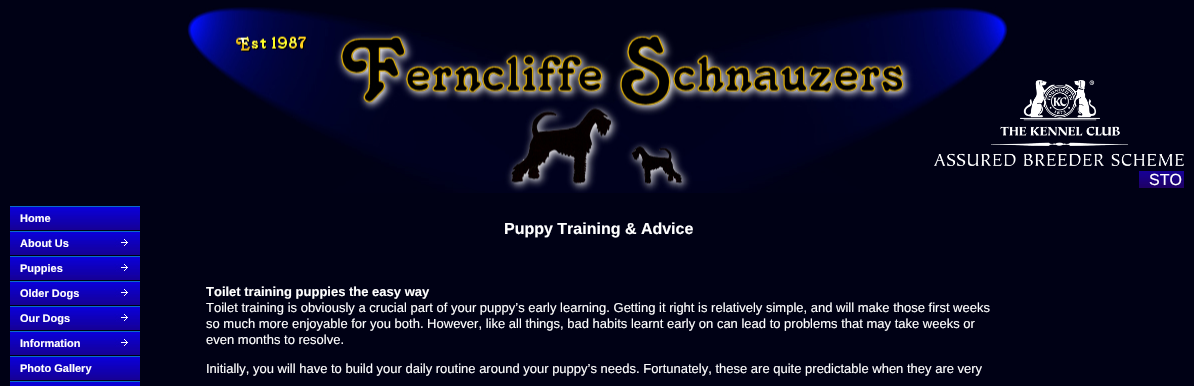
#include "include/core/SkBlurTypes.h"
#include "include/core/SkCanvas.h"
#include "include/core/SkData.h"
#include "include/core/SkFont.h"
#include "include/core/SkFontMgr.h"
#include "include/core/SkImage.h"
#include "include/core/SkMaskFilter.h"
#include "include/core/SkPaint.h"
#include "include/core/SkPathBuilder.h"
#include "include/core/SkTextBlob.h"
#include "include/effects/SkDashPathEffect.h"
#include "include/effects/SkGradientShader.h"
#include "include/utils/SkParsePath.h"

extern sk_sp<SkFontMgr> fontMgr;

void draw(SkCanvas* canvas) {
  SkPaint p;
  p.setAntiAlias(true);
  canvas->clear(SkColorSetRGB(0, 1, 21));
  canvas->drawImageRect(SkImages::DeferredFromEncodedData(SkData::MakeFromFileName("images/1.png")), SkRect::MakeLTRB(187, 7, 1008, 193), SkSamplingOptions());
  canvas->drawImageRect(SkImages::DeferredFromEncodedData(SkData::MakeFromFileName("images/2.png")), SkRect::MakeLTRB(934, 80, 1184, 166), SkSamplingOptions());
  canvas->drawImageRect(SkImages::DeferredFromEncodedData(SkData::MakeFromFileName("images/3.png")), SkRect::MakeLTRB(1139, 171, 1184, 188), SkSamplingOptions());
  canvas->drawImageRect(SkImages::DeferredFromEncodedData(SkData::MakeFromFileName("images/4.png")), SkRect::MakeLTRB(10, 206, 140, 230), SkSamplingOptions());
  canvas->drawImageRect(SkImages::DeferredFromEncodedData(SkData::MakeFromFileName("images/5.png")), SkRect::MakeLTRB(10, 231, 140, 255), SkSamplingOptions());
  canvas->drawImageRect(SkImages::DeferredFromEncodedData(SkData::MakeFromFileName("images/5.png")), SkRect::MakeLTRB(10, 256, 140, 280), SkSamplingOptions());
  canvas->drawImageRect(SkImages::DeferredFromEncodedData(SkData::MakeFromFileName("images/5.png")), SkRect::MakeLTRB(10, 281, 140, 305), SkSamplingOptions());
  canvas->drawImageRect(SkImages::DeferredFromEncodedData(SkData::MakeFromFileName("images/5.png")), SkRect::MakeLTRB(10, 306, 140, 330), SkSamplingOptions());
  canvas->drawImageRect(SkImages::DeferredFromEncodedData(SkData::MakeFromFileName("images/5.png")), SkRect::MakeLTRB(10, 331, 140, 355), SkSamplingOptions());
  canvas->drawImageRect(SkImages::DeferredFromEncodedData(SkData::MakeFromFileName("images/4.png")), SkRect::MakeLTRB(10, 356, 140, 380), SkSamplingOptions());
  canvas->drawImageRect(SkImages::DeferredFromEncodedData(SkData::MakeFromFileName("images/6.png")), SkRect::MakeLTRB(10, 381, 140, 386), SkSamplingOptions());
  SkFont font1(fontMgr->matchFamilyStyle("Liberation Sans", SkFontStyle::Normal()), 16);
  font1.setSubpixel(true);
  p.setColor(SK_ColorWHITE);
  canvas->drawString("STO", 1149, 185, font1, p);
  SkFont font2(fontMgr->matchFamilyStyle("Liberation Sans", SkFontStyle::Bold()), 11);
  font2.setSubpixel(true);
  canvas->drawString("Home", 20, 222, font2, p);
  canvas->drawString("About Us", 20, 247, font2, p);
  canvas->drawString("Puppies", 20, 272, font2, p);
  canvas->drawString("Older Dogs", 20, 297, font2, p);
  canvas->drawString("Our Dogs", 20, 322, font2, p);
  canvas->drawString("Information", 20, 347, font2, p);
  canvas->drawString("Photo Gallery", 20, 372, font2, p);
  SkFont font3(fontMgr->matchFamilyStyle("Liberation Sans", SkFontStyle::Bold()), 16);
  font3.setSubpixel(true);
  canvas->drawString("Puppy Training & Advice", 504, 234, font3, p);
  SkFont font4(fontMgr->matchFamilyStyle("Liberation Sans", SkFontStyle::Bold()), 13);
  font4.setSubpixel(true);
  canvas->drawString("Toilet training puppies the easy way", 206, 296, font4, p);
  SkFont font5(fontMgr->matchFamilyStyle("Liberation Sans", SkFontStyle::Normal()), 13);
  font5.setSubpixel(true);
  canvas->drawString("Toilet training is obviously a crucial part of your puppy’s early learning. Getting it right is relatively simple, and will make those first weeks", 206, 312, font5, p);
  canvas->drawString("so much more enjoyable for you both. However, like all things, bad habits learnt early on can lead to problems that may take weeks or", 206, 328, font5, p);
  canvas->drawString("even months to resolve.", 206, 344, font5, p);
  canvas->drawString("Initially, you will have to build your daily routine around your puppy’s needs. Fortunately, these are quite predictable when they are very", 206, 373, font5, p);
}
